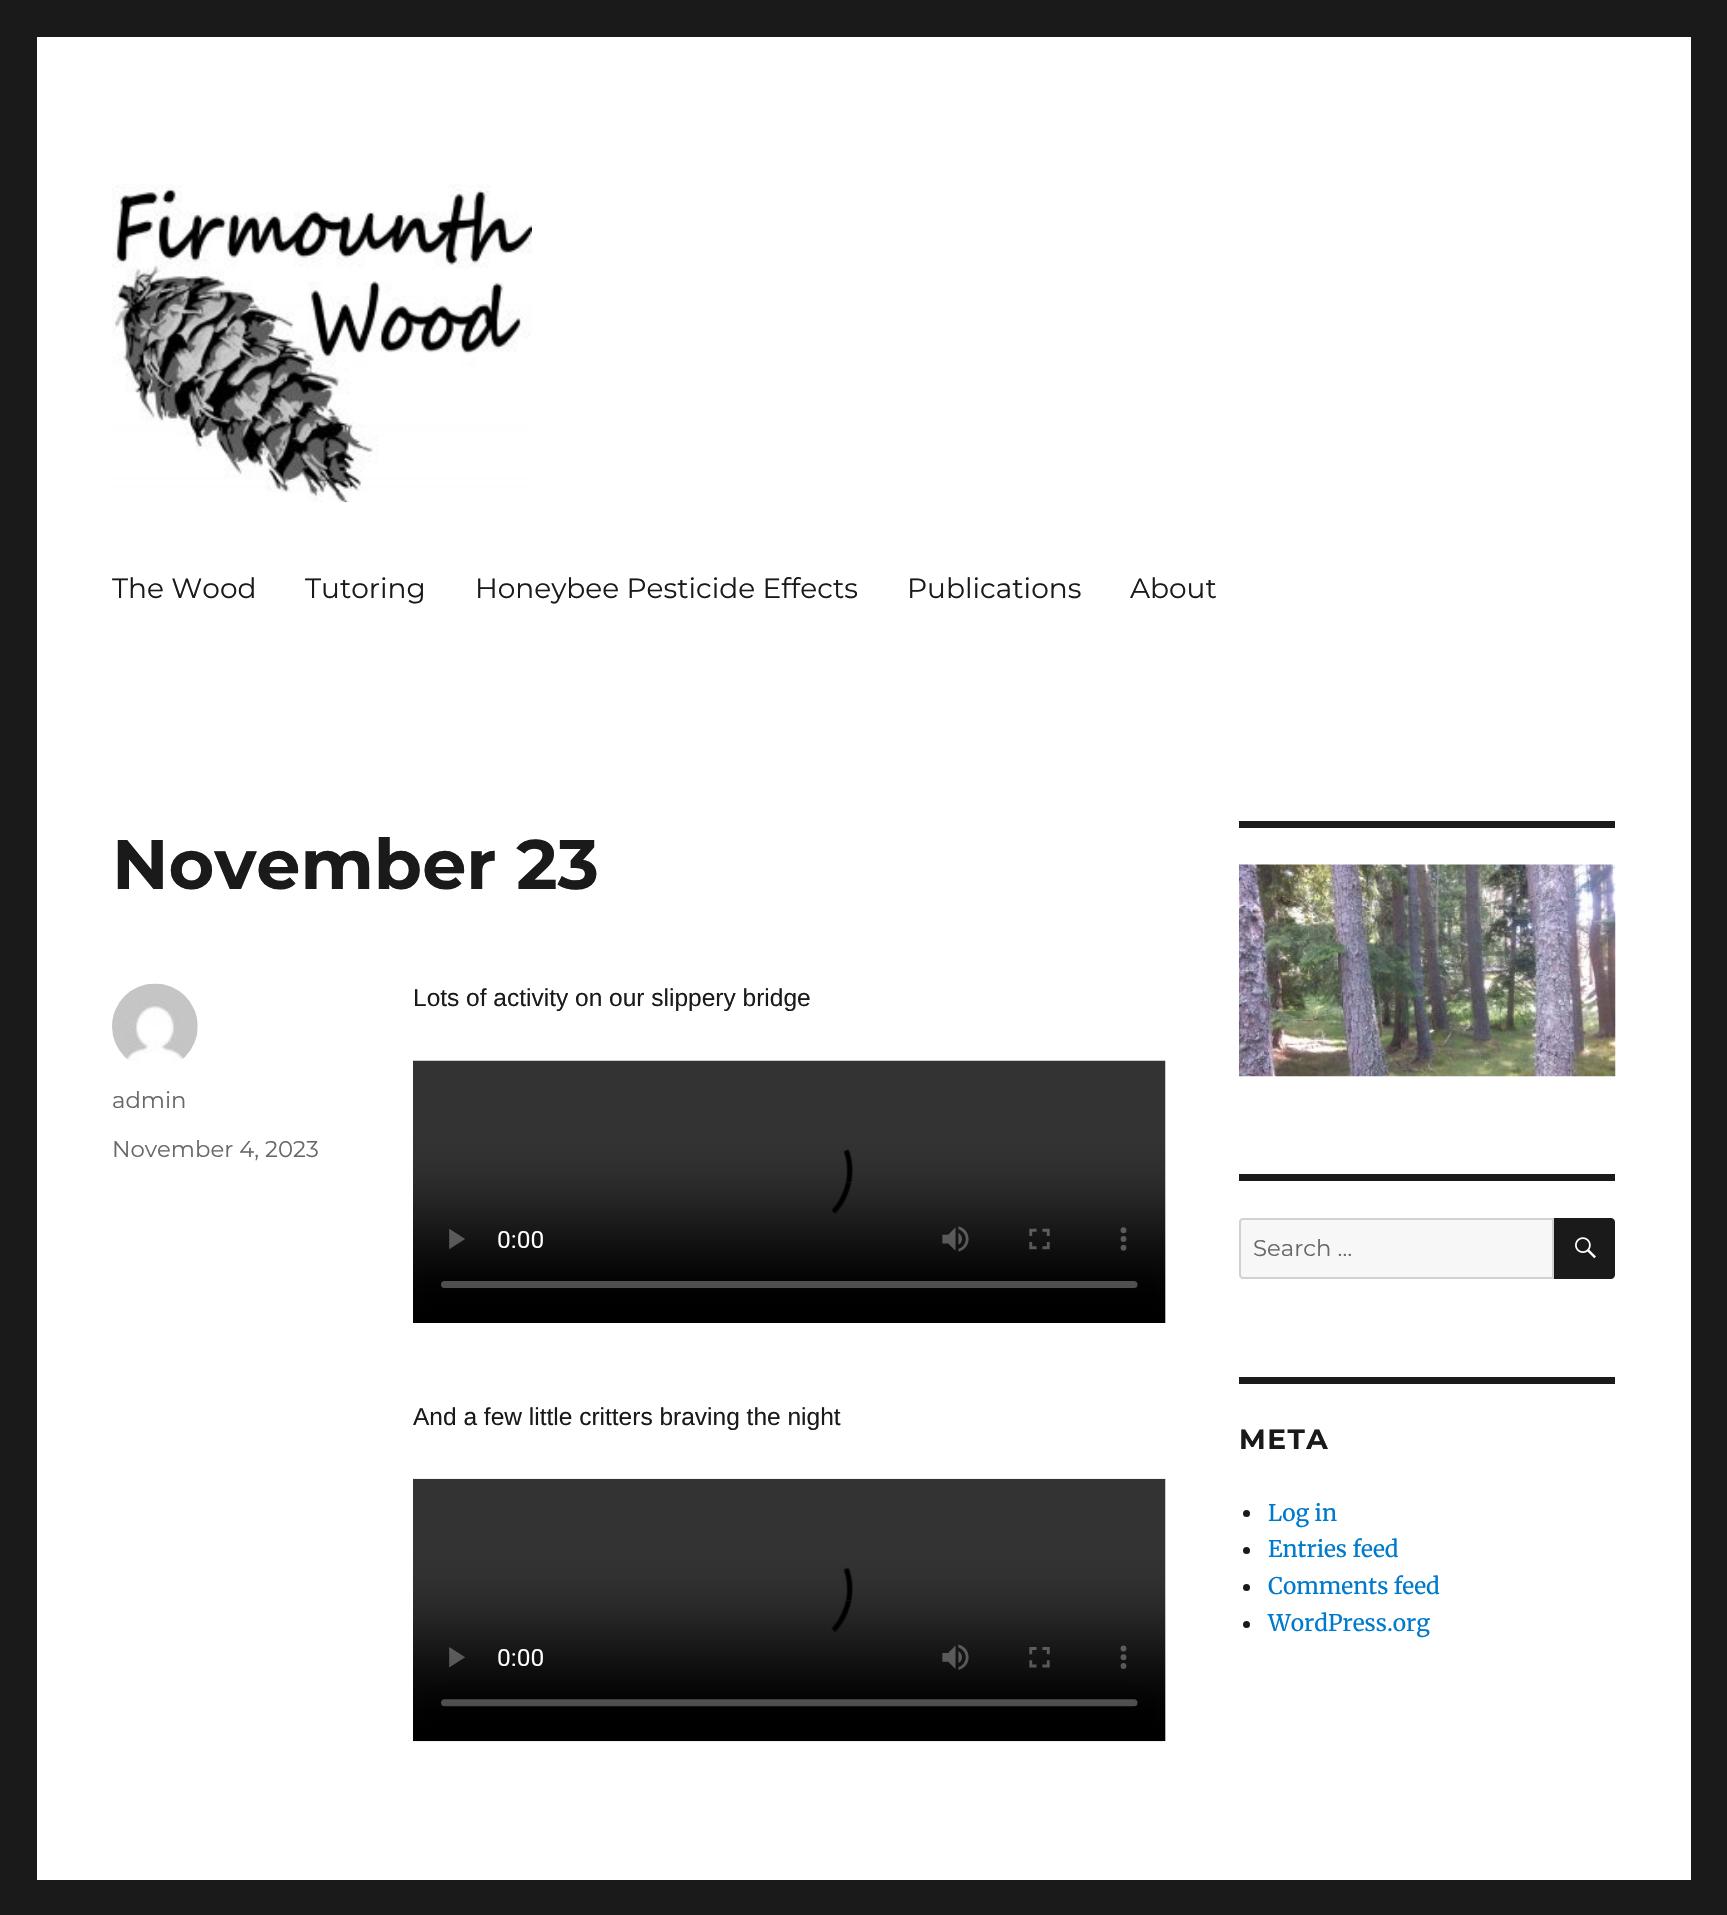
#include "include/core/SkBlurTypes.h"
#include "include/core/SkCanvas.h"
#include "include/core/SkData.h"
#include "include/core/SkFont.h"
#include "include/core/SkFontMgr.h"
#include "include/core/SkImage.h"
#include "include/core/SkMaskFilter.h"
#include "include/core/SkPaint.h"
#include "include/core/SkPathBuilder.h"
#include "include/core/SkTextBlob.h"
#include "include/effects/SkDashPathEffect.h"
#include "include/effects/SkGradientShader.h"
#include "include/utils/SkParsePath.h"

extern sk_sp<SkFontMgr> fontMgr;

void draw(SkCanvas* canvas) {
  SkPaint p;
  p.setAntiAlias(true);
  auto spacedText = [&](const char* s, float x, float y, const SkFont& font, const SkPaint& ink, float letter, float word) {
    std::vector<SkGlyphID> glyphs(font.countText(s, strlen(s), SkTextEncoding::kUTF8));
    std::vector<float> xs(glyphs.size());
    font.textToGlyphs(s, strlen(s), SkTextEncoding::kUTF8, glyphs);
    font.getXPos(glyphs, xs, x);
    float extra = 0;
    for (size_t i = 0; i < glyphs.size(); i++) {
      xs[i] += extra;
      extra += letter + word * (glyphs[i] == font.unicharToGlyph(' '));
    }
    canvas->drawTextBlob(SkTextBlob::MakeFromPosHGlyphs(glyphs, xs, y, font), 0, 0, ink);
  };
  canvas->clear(SkColorSetRGB(26, 26, 26));
  p.setColor(SK_ColorWHITE);
  canvas->drawRect(SkRect::MakeLTRB(37, 37, 1691, 1880), p);
  canvas->drawImageRect(SkImages::DeferredFromEncodedData(SkData::MakeFromFileName("images/1.png")), SkRect::MakeLTRB(112, 184, 532, 503), SkSamplingOptions());
  canvas->drawImageRect(SkImages::DeferredFromEncodedData(SkData::MakeFromFileName("images/2.png")), SkRect::MakeLTRB(112, 983, 198, 1061), SkSamplingOptions());
  canvas->drawImageRect(SkImages::DeferredFromEncodedData(SkData::MakeFromFileName("images/3.png")), SkRect::MakeLTRB(413, 1060, 1166, 1323), SkSamplingOptions());
  canvas->drawImageRect(SkImages::DeferredFromEncodedData(SkData::MakeFromFileName("images/4.png")), SkRect::MakeLTRB(413, 1478, 1166, 1742), SkSamplingOptions());
  p.setColor(SkColorSetRGB(26, 26, 26));
  canvas->drawRect(SkRect::MakeLTRB(1239, 821, 1615, 828), p);
  canvas->drawImageRect(SkImages::DeferredFromEncodedData(SkData::MakeFromFileName("images/5.png")), SkRect::MakeLTRB(1239, 864, 1616, 1077), SkSamplingOptions());
  canvas->drawRect(SkRect::MakeLTRB(1239, 1174, 1615, 1181), p);
  p.setColor(SkColorSetRGB(247, 247, 247));
  canvas->drawPath(SkPathBuilder().moveTo(1243, 1219).lineTo(1553, 1219).lineTo(1553, 1278).lineTo(1243, 1278).cubicTo(1241.5f, 1278, 1240, 1276.5f, 1240, 1275).lineTo(1240, 1222).cubicTo(1240, 1220.5f, 1241.5f, 1219, 1243, 1219).close().detach(), p);
  p.setStyle(SkPaint::kStroke_Style);
  p.setStrokeWidth(2);
  p.setColor(SkColorSetRGB(209, 209, 209));
  canvas->drawPath(SkPathBuilder().moveTo(1243, 1219).lineTo(1553, 1219).lineTo(1553, 1278).lineTo(1243, 1278).cubicTo(1241.5f, 1278, 1240, 1276.5f, 1240, 1275).lineTo(1240, 1222).cubicTo(1240, 1220.5f, 1241.5f, 1219, 1243, 1219).close().detach(), p);
  p.setStyle(SkPaint::kFill_Style);
  p.setColor(SkColorSetRGB(26, 26, 26));
  canvas->drawPath(SkPathBuilder().moveTo(1554, 1218).lineTo(1611, 1218).cubicTo(1613, 1218, 1615, 1220, 1615, 1222).lineTo(1615, 1275).cubicTo(1615, 1277, 1613, 1279, 1611, 1279).lineTo(1554, 1279).close().detach(), p);
  canvas->drawImageRect(SkImages::DeferredFromEncodedData(SkData::MakeFromFileName("images/6.png")), SkRect::MakeLTRB(1575, 1237, 1596, 1259), SkSamplingOptions());
  canvas->drawRect(SkRect::MakeLTRB(1239, 1377, 1615, 1384), p);
  canvas->drawCircle(1246.5f, 1513.5f, 3.5f, p);
  canvas->drawCircle(1246.5f, 1550.5f, 3.5f, p);
  canvas->drawCircle(1246.5f, 1587.5f, 3.5f, p);
  canvas->drawCircle(1246.5f, 1624.5f, 3.5f, p);
  SkFont font1(fontMgr->matchFamilyStyle("Montserrat", SkFontStyle::Normal()), 28);
  font1.setSubpixel(true);
  canvas->drawString("The Wood", 112, 598, font1, p);
  canvas->drawString("Tutoring", 305, 598, font1, p);
  canvas->drawString("Honeybee Pesticide Effects", 475, 598, font1, p);
  canvas->drawString("Publications", 907, 598, font1, p);
  canvas->drawString("About", 1130, 598, font1, p);
  SkFont font2(fontMgr->matchFamilyStyle("Montserrat", SkFontStyle::Bold()), 70);
  font2.setSubpixel(true);
  canvas->drawString("November 23", 112, 889, font2, p);
  SkFont font3(fontMgr->matchFamilyStyle("Montserrat", SkFontStyle::Normal()), 22.75f);
  font3.setSubpixel(true);
  p.setColor(SkColorSetRGB(104, 104, 104));
  canvas->drawString("admin", 112, 1108, font3, p);
  canvas->drawString("November 4, 2023", 112, 1157, font3, p);
  SkFont font4(fontMgr->matchFamilyStyle("Liberation Sans", SkFontStyle::Normal()), 24.5f);
  font4.setSubpixel(true);
  p.setColor(SkColorSetRGB(26, 26, 26));
  canvas->drawString("Lots of activity on our slippery bridge", 413, 1006, font4, p);
  canvas->drawString("And a few little critters braving the night", 413, 1425, font4, p);
  p.setColor(SkColorSetRGB(104, 104, 104));
  canvas->drawString("Search …", 1253, 1256, font3, p);
  SkFont font5(fontMgr->matchFamilyStyle("Montserrat", SkFontStyle::Bold()), 28);
  font5.setSubpixel(true);
  p.setColor(SkColorSetRGB(26, 26, 26));
  spacedText("META", 1239, 1449, font5, p, 1.5f, 0);
  SkFont font6(fontMgr->matchFamilyStyle("Merriweather", SkFontStyle::Normal()), 22.75f);
  font6.setSubpixel(true);
  p.setColor(SkColorSetRGB(0, 122, 204));
  canvas->drawString("Log in", 1268, 1521, font6, p);
  canvas->drawString("Entries feed", 1268, 1557, font6, p);
  canvas->drawString("Comments feed", 1268, 1594, font6, p);
  canvas->drawString("WordPress.org", 1268, 1631, font6, p);
}
